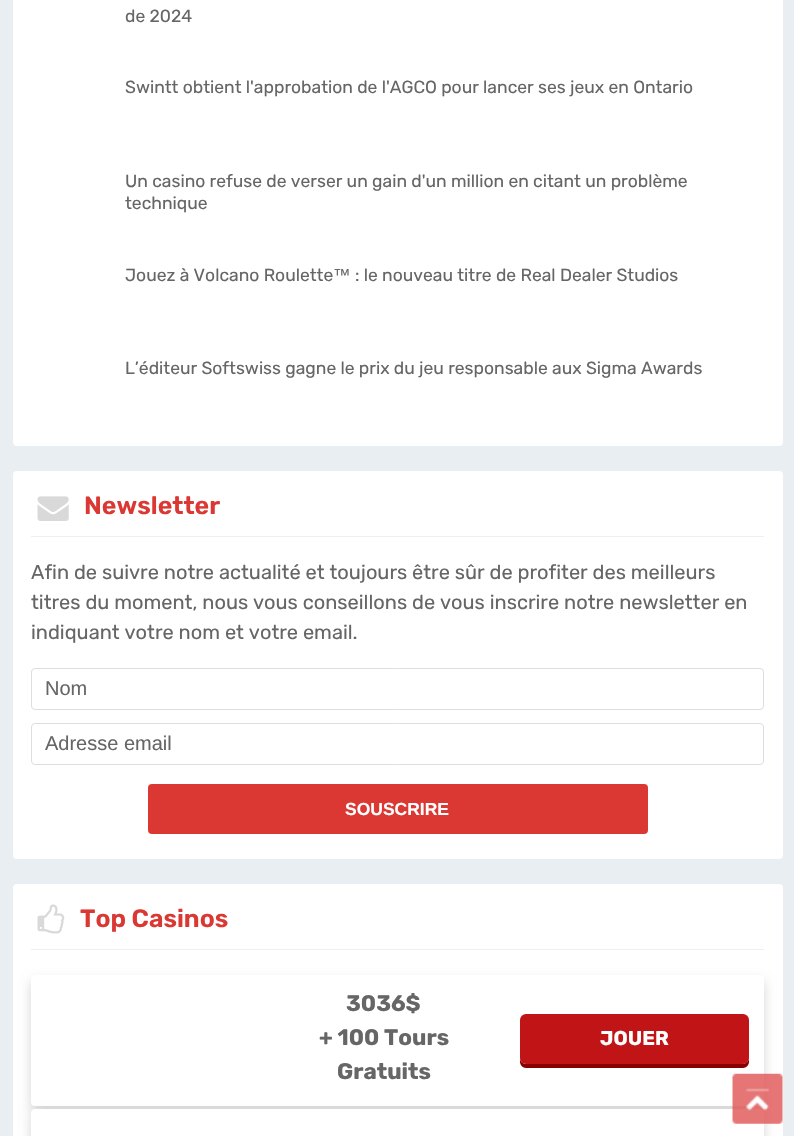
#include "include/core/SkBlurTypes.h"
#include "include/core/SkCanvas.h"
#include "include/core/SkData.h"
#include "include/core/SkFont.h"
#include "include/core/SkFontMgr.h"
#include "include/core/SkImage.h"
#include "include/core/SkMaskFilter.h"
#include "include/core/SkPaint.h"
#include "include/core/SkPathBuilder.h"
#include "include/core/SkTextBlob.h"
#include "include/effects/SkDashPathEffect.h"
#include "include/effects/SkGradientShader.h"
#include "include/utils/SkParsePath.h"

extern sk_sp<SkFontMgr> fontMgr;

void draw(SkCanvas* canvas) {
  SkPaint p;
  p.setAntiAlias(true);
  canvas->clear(SkColorSetRGB(233, 238, 242));
  p.setColor(SK_ColorWHITE);
  canvas->drawRoundRect(SkRect::MakeLTRB(13, -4, 783, 446), 4, 4, p);
  canvas->drawRoundRect(SkRect::MakeLTRB(13, 471, 783, 859), 4, 4, p);
  p.setColor(SkColorSetRGB(239, 239, 239));
  canvas->drawRect(SkRect::MakeLTRB(31, 536, 764, 537), p);
  canvas->drawImageRect(SkImages::DeferredFromEncodedData(SkData::MakeFromFileName("images/1.png")), SkRect::MakeLTRB(37, 496, 69, 521), SkSamplingOptions());
  p.setStyle(SkPaint::kStroke_Style);
  p.setStrokeWidth(1);
  p.setColor(SkColorSetRGB(222, 222, 222));
  canvas->drawRoundRect(SkRect::MakeLTRB(31.5f, 668.5f, 763.5f, 709.5f), 3.5f, 3.5f, p);
  canvas->drawRoundRect(SkRect::MakeLTRB(31.5f, 723.5f, 763.5f, 764.5f), 3.5f, 3.5f, p);
  p.setStyle(SkPaint::kFill_Style);
  p.setColor(SkColorSetRGB(219, 56, 52));
  canvas->drawRoundRect(SkRect::MakeLTRB(148, 784, 648, 834), 4, 4, p);
  p.setColor(SK_ColorWHITE);
  canvas->drawRoundRect(SkRect::MakeLTRB(13, 884, 783, 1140), 4, 4, p);
  p.setColor(SkColorSetRGB(239, 239, 239));
  canvas->drawRect(SkRect::MakeLTRB(31, 949, 764, 950), p);
  canvas->drawImageRect(SkImages::DeferredFromEncodedData(SkData::MakeFromFileName("images/2.png")), SkRect::MakeLTRB(37, 904, 65, 934), SkSamplingOptions());
  p.setColor(SkColorSetARGB(41, 0, 0, 0));
  p.setMaskFilter(SkMaskFilter::MakeBlur(kNormal_SkBlurStyle, 6));
  canvas->drawRoundRect(SkRect::MakeLTRB(31, 981, 764, 1113), 4, 4, p);
  p.setMaskFilter(nullptr);
  p.setColor(SK_ColorWHITE);
  canvas->drawRoundRect(SkRect::MakeLTRB(31, 975, 764, 1106), 4, 4, p);
  p.setColor(SkColorSetRGB(136, 0, 2));
  canvas->drawPath(SkPathBuilder().moveTo(520, 1058).lineTo(520, 1062).cubicTo(520, 1065, 523, 1068, 526, 1068).lineTo(743, 1068).cubicTo(746, 1068, 749, 1065, 749, 1062).lineTo(749, 1022).lineTo(749, 1058).cubicTo(749, 1061, 746, 1064, 742, 1064).lineTo(526, 1064).cubicTo(523, 1064, 520, 1061, 520, 1058).close().detach(), p);
  p.setColor(SkColorSetRGB(193, 20, 23));
  canvas->drawRoundRect(SkRect::MakeLTRB(520, 1014, 749, 1064), 6, 6, p);
  p.setColor(SkColorSetARGB(41, 0, 0, 0));
  p.setMaskFilter(SkMaskFilter::MakeBlur(kNormal_SkBlurStyle, 6));
  canvas->drawRoundRect(SkRect::MakeLTRB(31, 1115, 764, 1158), 4, 4, p);
  p.setMaskFilter(nullptr);
  p.setColor(SK_ColorWHITE);
  canvas->drawRoundRect(SkRect::MakeLTRB(31, 1109, 764, 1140), 4, 4, p);
  canvas->drawImageRect(SkImages::DeferredFromEncodedData(SkData::MakeFromFileName("images/3.png")), SkRect::MakeLTRB(732, 1073, 783, 1124), SkSamplingOptions());
  SkFont font1(fontMgr->matchFamilyStyle("Rubik", SkFontStyle::Normal()), 17.5f);
  font1.setSubpixel(true);
  p.setColor(SkColorSetRGB(102, 102, 102));
  canvas->drawString("de 2024", 125, 22, font1, p);
  canvas->drawString("Swintt obtient l'approbation de l'AGCO pour lancer ses jeux en Ontario", 125, 93, font1, p);
  canvas->drawString("Un casino refuse de verser un gain d'un million en citant un problème", 125, 187, font1, p);
  canvas->drawString("technique", 125, 209, font1, p);
  canvas->drawString("Jouez à Volcano Roulette", 125, 281, font1, p);
  SkFont font2(fontMgr->matchFamilyStyle("Liberation Sans", SkFontStyle::Normal()), 17.5f);
  font2.setSubpixel(true);
  canvas->drawString("™", 333, 281, font2, p);
  canvas->drawString(": le nouveau titre de Real Dealer Studios", 355, 281, font1, p);
  canvas->drawString("L’éditeur Softswiss gagne le prix du jeu responsable aux Sigma Awards", 125, 374, font1, p);
  SkFont font3(fontMgr->matchFamilyStyle("Rubik", SkFontStyle(600, SkFontStyle::kNormal_Width, SkFontStyle::kUpright_Slant)), 25);
  font3.setSubpixel(true);
  p.setColor(SkColorSetRGB(219, 56, 52));
  canvas->drawString("Newsletter", 84, 514, font3, p);
  SkFont font4(fontMgr->matchFamilyStyle("Rubik", SkFontStyle::Normal()), 20);
  font4.setSubpixel(true);
  p.setColor(SkColorSetRGB(102, 102, 102));
  canvas->drawString("Afin de suivre notre actualité et toujours être sûr de profiter des meilleurs", 31, 579, font4, p);
  canvas->drawString("titres du moment, nous vous conseillons de vous inscrire notre newsletter en", 31, 609, font4, p);
  canvas->drawString("indiquant votre nom et votre email.", 31, 639, font4, p);
  SkFont font5(fontMgr->matchFamilyStyle("Liberation Sans", SkFontStyle::Normal()), 20);
  font5.setSubpixel(true);
  canvas->drawString("Nom", 45, 695, font5, p);
  canvas->drawString("Adresse email", 45, 750, font5, p);
  SkFont font6(fontMgr->matchFamilyStyle("Liberation Sans", SkFontStyle::Bold()), 17.5f);
  font6.setSubpixel(true);
  p.setColor(SK_ColorWHITE);
  canvas->drawString("SOUSCRIRE", 345, 815, font6, p);
  p.setColor(SkColorSetRGB(219, 56, 52));
  canvas->drawString("Top Casinos", 80, 927, font3, p);
  SkFont font7(fontMgr->matchFamilyStyle("Rubik", SkFontStyle::Bold()), 22.5f);
  font7.setSubpixel(true);
  p.setColor(SkColorSetRGB(102, 102, 102));
  canvas->drawString("3036$", 346, 1011, font7, p);
  canvas->drawString("+ 100 Tours", 319, 1045, font7, p);
  canvas->drawString("Gratuits", 337, 1079, font7, p);
  SkFont font8(fontMgr->matchFamilyStyle("Rubik", SkFontStyle::Bold()), 20);
  font8.setSubpixel(true);
  p.setColor(SK_ColorWHITE);
  canvas->drawString("JOUER", 600, 1045, font8, p);
}
